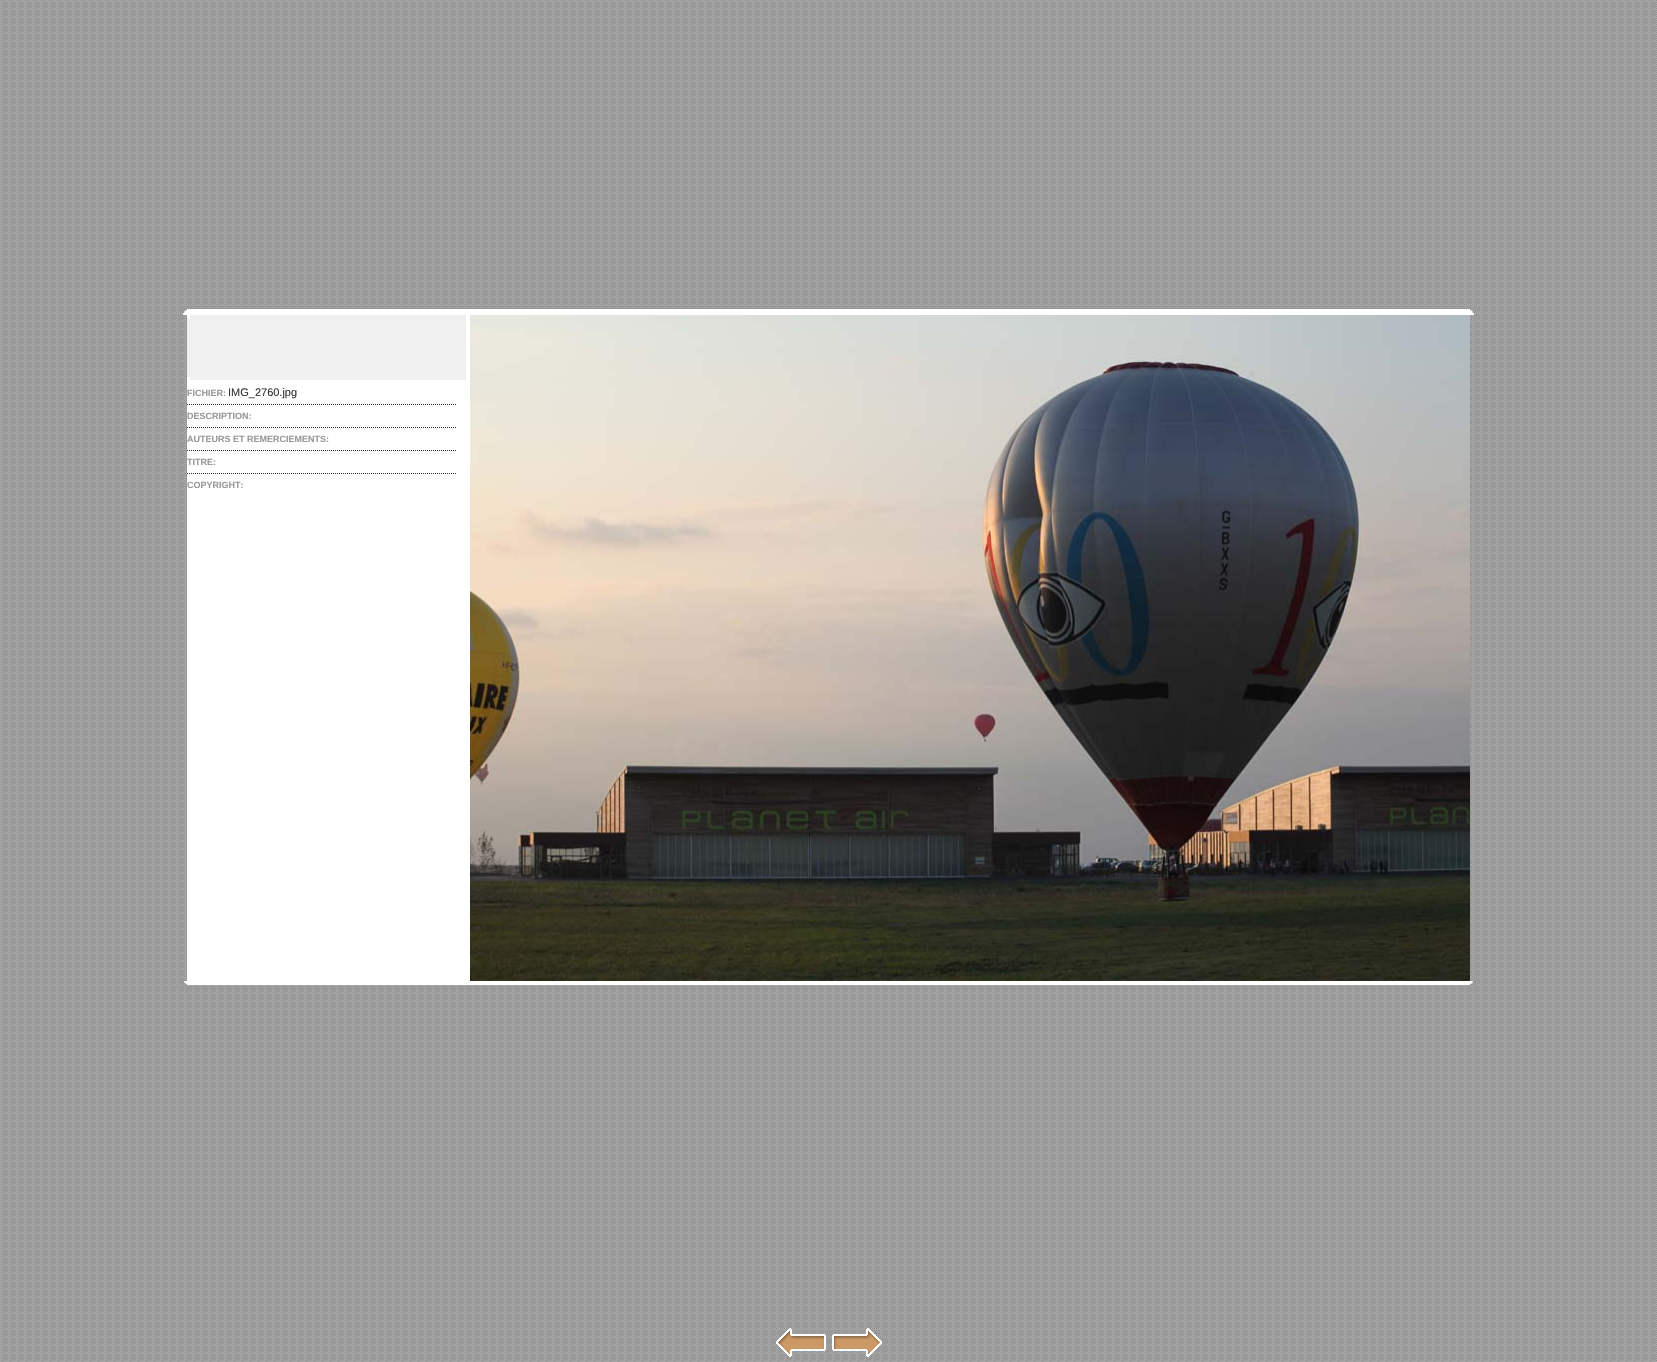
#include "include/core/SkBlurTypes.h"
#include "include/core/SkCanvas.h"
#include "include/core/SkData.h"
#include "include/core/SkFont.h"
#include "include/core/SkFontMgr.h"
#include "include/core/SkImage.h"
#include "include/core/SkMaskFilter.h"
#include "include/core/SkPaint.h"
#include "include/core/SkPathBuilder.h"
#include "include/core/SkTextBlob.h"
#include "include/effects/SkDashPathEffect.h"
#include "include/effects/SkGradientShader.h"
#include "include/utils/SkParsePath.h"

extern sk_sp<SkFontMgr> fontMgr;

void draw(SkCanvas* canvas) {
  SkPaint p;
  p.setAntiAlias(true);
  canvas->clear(SK_ColorWHITE);
  canvas->drawImageRect(SkImages::DeferredFromEncodedData(SkData::MakeFromFileName("images/1.png")), SkRect::MakeLTRB(0, 0, 1657, 1362), SkSamplingOptions());
  canvas->drawImageRect(SkImages::DeferredFromEncodedData(SkData::MakeFromFileName("images/2.png")), SkRect::MakeLTRB(183, 309, 187, 313), SkSamplingOptions());
  p.setColor(SK_ColorWHITE);
  canvas->drawRect(SkRect::MakeLTRB(187, 309, 1470, 313), p);
  canvas->drawImageRect(SkImages::DeferredFromEncodedData(SkData::MakeFromFileName("images/3.png")), SkRect::MakeLTRB(1470, 309, 1474, 313), SkSamplingOptions());
  canvas->drawRect(SkRect::MakeLTRB(183, 313, 1474, 315), p);
  canvas->drawRect(SkRect::MakeLTRB(187, 315, 470, 981), p);
  p.setColor(SkColorSetRGB(240, 240, 240));
  canvas->drawRect(SkRect::MakeLTRB(187, 315, 466, 319), p);
  p.setColor(SK_ColorWHITE);
  canvas->drawRect(SkRect::MakeLTRB(187, 315, 190, 318), p);
  p.setColor(SkColorSetRGB(240, 240, 240));
  canvas->drawRect(SkRect::MakeLTRB(187, 319, 466, 376), p);
  canvas->drawRect(SkRect::MakeLTRB(187, 376, 466, 380), p);
  p.setColor(SK_ColorWHITE);
  canvas->drawRect(SkRect::MakeLTRB(187, 377, 190, 380), p);
  p.setStyle(SkPaint::kStroke_Style);
  p.setStrokeWidth(1);
  p.setColor(SkColorSetRGB(51, 51, 51));
  p.setPathEffect(SkDashPathEffect::Make({{1, 1}}, 0));
  canvas->drawPath(SkPathBuilder().moveTo(187, 404.5f).lineTo(456, 404.5f).detach(), p);
  p.setPathEffect(nullptr);
  p.setPathEffect(SkDashPathEffect::Make({{1, 1}}, 0));
  canvas->drawPath(SkPathBuilder().moveTo(187, 427.5f).lineTo(456, 427.5f).detach(), p);
  p.setPathEffect(nullptr);
  p.setPathEffect(SkDashPathEffect::Make({{1, 1}}, 0));
  canvas->drawPath(SkPathBuilder().moveTo(187, 450.5f).lineTo(456, 450.5f).detach(), p);
  p.setPathEffect(nullptr);
  p.setPathEffect(SkDashPathEffect::Make({{1, 1}}, 0));
  canvas->drawPath(SkPathBuilder().moveTo(187, 473.5f).lineTo(456, 473.5f).detach(), p);
  p.setPathEffect(nullptr);
  canvas->drawImageRect(SkImages::DeferredFromEncodedData(SkData::MakeFromFileName("images/4.png")), SkRect::MakeLTRB(470, 315, 1470, 981), SkSamplingOptions());
  canvas->drawImageRect(SkImages::DeferredFromEncodedData(SkData::MakeFromFileName("images/5.png")), SkRect::MakeLTRB(183, 981, 187, 985), SkSamplingOptions());
  p.setStyle(SkPaint::kFill_Style);
  p.setColor(SK_ColorWHITE);
  canvas->drawRect(SkRect::MakeLTRB(187, 981, 1470, 985), p);
  canvas->drawImageRect(SkImages::DeferredFromEncodedData(SkData::MakeFromFileName("images/6.png")), SkRect::MakeLTRB(1470, 981, 1474, 985), SkSamplingOptions());
  canvas->drawImageRect(SkImages::DeferredFromEncodedData(SkData::MakeFromFileName("images/7.png")), SkRect::MakeLTRB(776, 1328, 826, 1357), SkSamplingOptions());
  canvas->drawImageRect(SkImages::DeferredFromEncodedData(SkData::MakeFromFileName("images/8.png")), SkRect::MakeLTRB(832, 1328, 882, 1357), SkSamplingOptions());
  SkFont font1(fontMgr->matchFamilyStyle("Liberation Sans", SkFontStyle::Bold()), 9);
  font1.setSubpixel(true);
  p.setColor(SkColorSetRGB(153, 153, 153));
  canvas->drawString("FICHIER:", 187, 396, font1, p);
  SkFont font2(fontMgr->matchFamilyStyle("Liberation Sans", SkFontStyle::Normal()), 11);
  font2.setSubpixel(true);
  p.setColor(SkColorSetRGB(51, 51, 51));
  canvas->drawString("IMG_2760.jpg", 228, 396, font2, p);
  p.setColor(SkColorSetRGB(153, 153, 153));
  canvas->drawString("DESCRIPTION:", 187, 419, font1, p);
  canvas->drawString("AUTEURS ET REMERCIEMENTS:", 187, 442, font1, p);
  canvas->drawString("TITRE:", 187, 465, font1, p);
  canvas->drawString("COPYRIGHT:", 187, 488, font1, p);
}
